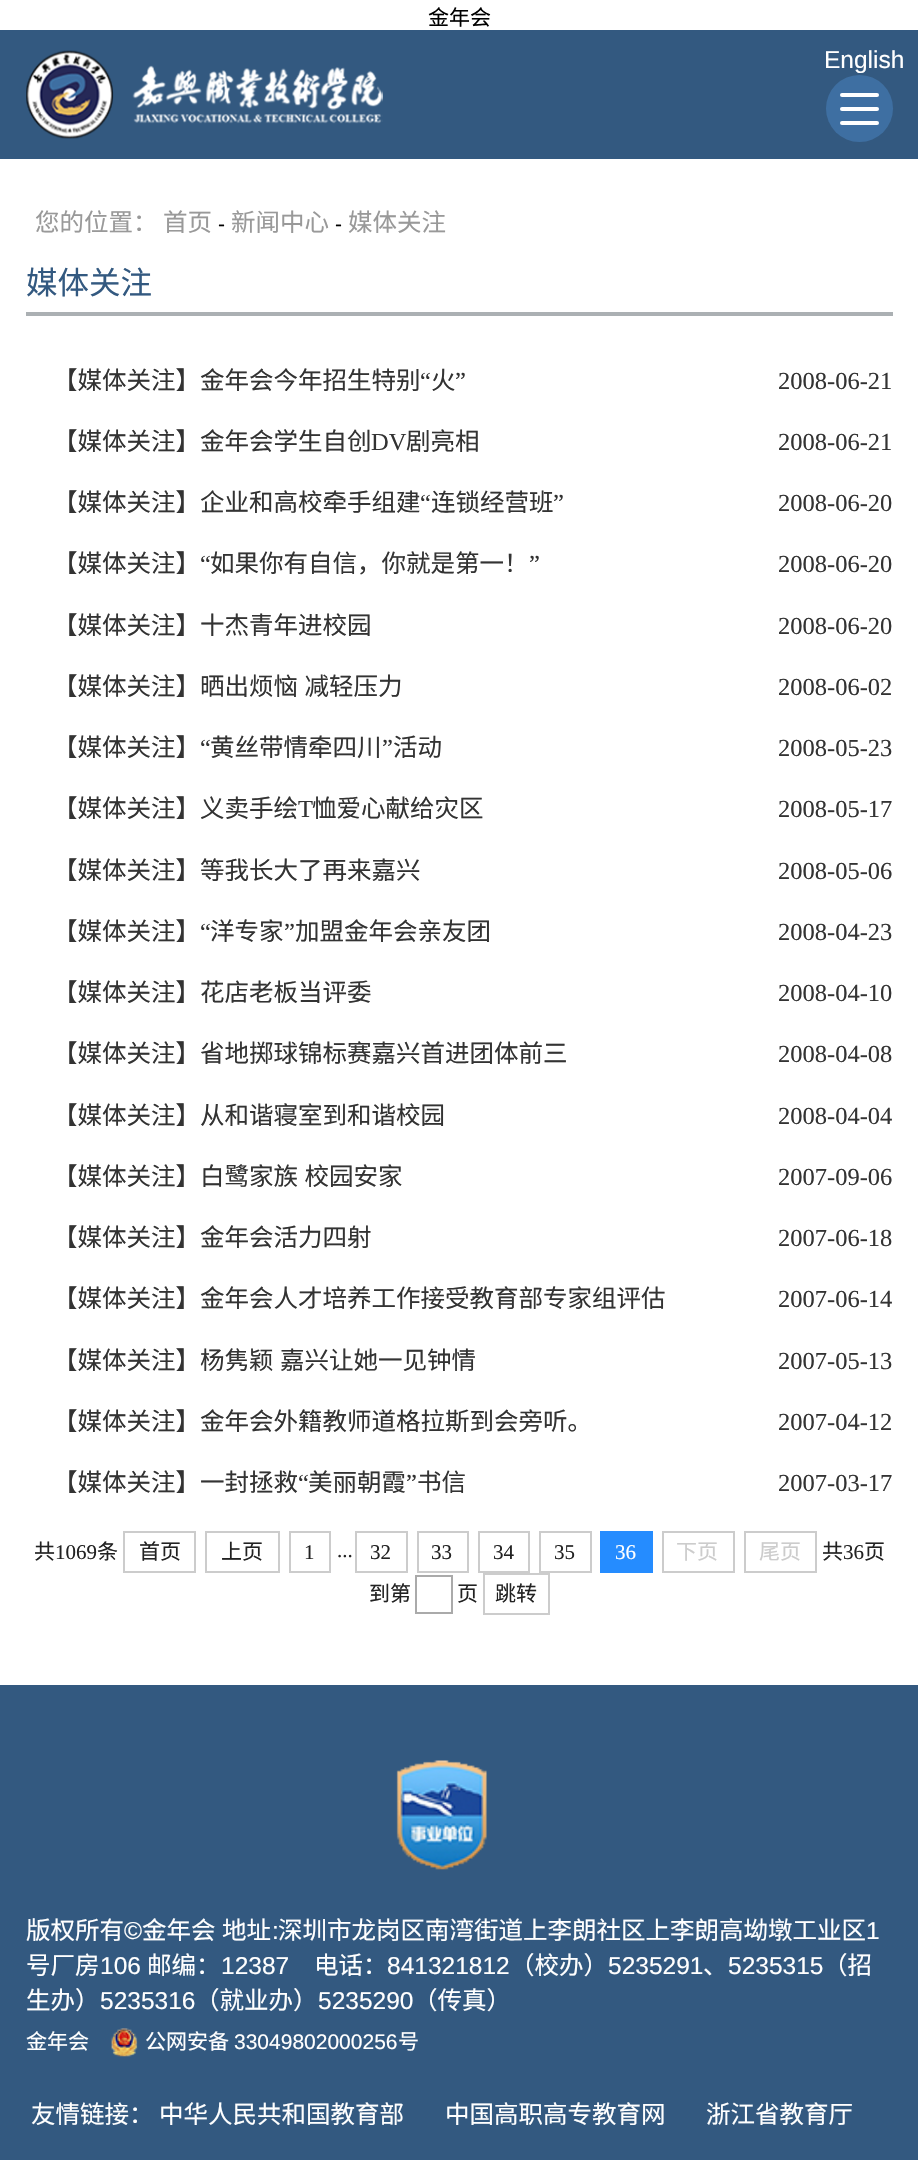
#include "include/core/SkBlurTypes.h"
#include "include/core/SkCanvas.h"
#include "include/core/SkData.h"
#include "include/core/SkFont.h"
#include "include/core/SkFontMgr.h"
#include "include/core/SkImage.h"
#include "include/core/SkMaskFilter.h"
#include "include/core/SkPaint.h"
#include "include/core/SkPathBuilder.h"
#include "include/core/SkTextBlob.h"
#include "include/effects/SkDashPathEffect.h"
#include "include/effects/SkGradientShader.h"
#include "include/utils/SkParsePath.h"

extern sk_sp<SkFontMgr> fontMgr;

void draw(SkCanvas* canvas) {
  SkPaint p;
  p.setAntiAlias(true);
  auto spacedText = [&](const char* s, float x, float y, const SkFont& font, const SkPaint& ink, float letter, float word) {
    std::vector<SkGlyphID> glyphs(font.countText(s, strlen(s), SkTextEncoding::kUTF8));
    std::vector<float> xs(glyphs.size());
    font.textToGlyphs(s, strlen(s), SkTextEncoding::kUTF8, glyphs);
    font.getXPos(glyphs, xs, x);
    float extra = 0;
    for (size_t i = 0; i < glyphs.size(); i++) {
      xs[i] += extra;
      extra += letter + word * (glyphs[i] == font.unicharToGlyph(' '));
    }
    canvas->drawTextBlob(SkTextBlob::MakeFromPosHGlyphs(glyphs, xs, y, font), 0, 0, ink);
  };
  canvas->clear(SK_ColorWHITE);
  p.setColor(SkColorSetRGB(51, 89, 128));
  canvas->drawRect(SkRect::MakeLTRB(0, 30, 918, 159), p);
  canvas->drawImageRect(SkImages::DeferredFromEncodedData(SkData::MakeFromFileName("images/1.png")), SkRect::MakeLTRB(26, 50, 383, 139), SkSamplingOptions());
  p.setColor(SkColorSetRGB(62, 111, 162));
  canvas->drawCircle(859.5f, 108.5f, 33.5f, p);
  p.setColor(SK_ColorWHITE);
  canvas->drawRoundRect(SkRect::MakeLTRB(840, 93, 879, 97), 2, 2, p);
  canvas->drawRoundRect(SkRect::MakeLTRB(840, 107, 879, 111), 2, 2, p);
  canvas->drawRoundRect(SkRect::MakeLTRB(840, 121, 879, 125), 2, 2, p);
  p.setColor(SkColorSetRGB(171, 176, 179));
  canvas->drawRect(SkRect::MakeLTRB(26, 312, 893, 316), p);
  p.setStyle(SkPaint::kStroke_Style);
  p.setStrokeWidth(2);
  p.setColor(SkColorSetRGB(204, 204, 204));
  canvas->drawRect(SkRect::MakeLTRB(124, 1532, 195, 1572), p);
  canvas->drawRect(SkRect::MakeLTRB(206, 1532, 279, 1572), p);
  canvas->drawRect(SkRect::MakeLTRB(290, 1532, 330, 1572), p);
  canvas->drawRect(SkRect::MakeLTRB(356, 1532, 407, 1572), p);
  canvas->drawRect(SkRect::MakeLTRB(418, 1532, 468, 1572), p);
  canvas->drawRect(SkRect::MakeLTRB(479, 1532, 529, 1572), p);
  canvas->drawRect(SkRect::MakeLTRB(540, 1532, 591, 1572), p);
  p.setStyle(SkPaint::kFill_Style);
  p.setColor(SkColorSetRGB(37, 140, 255));
  canvas->drawRect(SkRect::MakeLTRB(600, 1531, 653, 1573), p);
  p.setStyle(SkPaint::kStroke_Style);
  p.setColor(SkColorSetRGB(204, 204, 204));
  canvas->drawRect(SkRect::MakeLTRB(663, 1532, 734, 1572), p);
  canvas->drawRect(SkRect::MakeLTRB(745, 1532, 816, 1572), p);
  p.setColor(SkColorSetRGB(170, 170, 170));
  canvas->drawRect(SkRect::MakeLTRB(416, 1576, 452, 1613), p);
  p.setColor(SkColorSetRGB(204, 204, 204));
  canvas->drawRect(SkRect::MakeLTRB(484, 1574, 549, 1614), p);
  p.setStyle(SkPaint::kFill_Style);
  p.setColor(SkColorSetRGB(51, 89, 128));
  canvas->drawRect(SkRect::MakeLTRB(0, 1685, 918, 2160), p);
  canvas->drawImageRect(SkImages::DeferredFromEncodedData(SkData::MakeFromFileName("images/2.png")), SkRect::MakeLTRB(396, 1760, 487, 1870), SkSamplingOptions());
  canvas->drawImageRect(SkImages::DeferredFromEncodedData(SkData::MakeFromFileName("images/3.png")), SkRect::MakeLTRB(111, 2028, 138, 2057), SkSamplingOptions());
  SkFont font1(fontMgr->matchFamilyStyle("Noto Sans CJK SC", SkFontStyle::Normal()), 21);
  font1.setSubpixel(true);
  p.setColor(SK_ColorBLACK);
  canvas->drawString("金年会", 428, 25, font1, p);
  SkFont font2(fontMgr->matchFamilyStyle("Liberation Sans", SkFontStyle::Normal()), 24.5f);
  font2.setSubpixel(true);
  p.setColor(SK_ColorWHITE);
  canvas->drawString("English", 824, 68, font2, p);
  SkFont font3(fontMgr->matchFamilyStyle("Noto Sans CJK SC", SkFontStyle::Normal()), 24.5f);
  font3.setSubpixel(true);
  p.setColor(SkColorSetRGB(153, 153, 153));
  canvas->drawString("您的位置：", 35, 231, font3, p);
  canvas->drawString("首页", 163, 231, font3, p);
  SkFont font4(fontMgr->matchFamilyStyle("Liberation Sans", SkFontStyle::Normal()), 21);
  font4.setSubpixel(true);
  p.setColor(SK_ColorBLACK);
  canvas->drawString("-", 218, 231, font4, p);
  p.setColor(SkColorSetRGB(153, 153, 153));
  canvas->drawString("新闻中心", 231, 231, font3, p);
  p.setColor(SK_ColorBLACK);
  canvas->drawString("-", 335, 231, font4, p);
  p.setColor(SkColorSetRGB(153, 153, 153));
  canvas->drawString("媒体关注", 348, 231, font3, p);
  SkFont font5(fontMgr->matchFamilyStyle("Noto Sans CJK SC", SkFontStyle::Normal()), 31.5f);
  font5.setSubpixel(true);
  p.setColor(SkColorSetRGB(51, 89, 128));
  canvas->drawString("媒体关注", 26, 294, font5, p);
  p.setColor(SkColorSetRGB(51, 51, 51));
  canvas->drawString("【媒体关注】金年会今年招生特别", 53, 389, font3, p);
  SkFont font6(fontMgr->matchFamilyStyle("Liberation Serif", SkFontStyle::Normal()), 24.5f);
  font6.setSubpixel(true);
  canvas->drawString("“", 420, 389, font6, p);
  canvas->drawString("火", 431, 389, font3, p);
  canvas->drawString("”", 455, 389, font6, p);
  canvas->drawString("2008-06-21", 778, 389, font6, p);
  canvas->drawString("【媒体关注】金年会学生自创", 53, 450, font3, p);
  canvas->drawString("DV", 371, 450, font6, p);
  canvas->drawString("剧亮相", 406, 450, font3, p);
  canvas->drawString("2008-06-21", 778, 450, font6, p);
  canvas->drawString("【媒体关注】企业和高校牵手组建", 53, 511, font3, p);
  canvas->drawString("“", 420, 511, font6, p);
  canvas->drawString("连锁经营班", 431, 511, font3, p);
  canvas->drawString("”", 553, 511, font6, p);
  canvas->drawString("2008-06-20", 778, 511, font6, p);
  canvas->drawString("【媒体关注】", 53, 572, font3, p);
  canvas->drawString("“", 200, 572, font6, p);
  canvas->drawString("如果你有自信，你就是第一！", 210, 572, font3, p);
  canvas->drawString("”", 529, 572, font6, p);
  canvas->drawString("2008-06-20", 778, 572, font6, p);
  canvas->drawString("【媒体关注】十杰青年进校园", 53, 634, font3, p);
  canvas->drawString("2008-06-20", 778, 634, font6, p);
  canvas->drawString("【媒体关注】", 53, 695, font3, p);
  spacedText("晒出烦恼 减轻压力", 200, 695, font3, p, 0, 1);
  canvas->drawString("2008-06-02", 778, 695, font6, p);
  canvas->drawString("【媒体关注】", 53, 756, font3, p);
  canvas->drawString("“", 200, 756, font6, p);
  canvas->drawString("黄丝带情牵四川", 210, 756, font3, p);
  canvas->drawString("”", 382, 756, font6, p);
  canvas->drawString("活动", 393, 756, font3, p);
  canvas->drawString("2008-05-23", 778, 756, font6, p);
  canvas->drawString("【媒体关注】义卖手绘", 53, 817, font3, p);
  canvas->drawString("T", 298, 817, font6, p);
  canvas->drawString("恤爱心献给灾区", 312, 817, font3, p);
  canvas->drawString("2008-05-17", 778, 817, font6, p);
  canvas->drawString("【媒体关注】等我长大了再来嘉兴", 53, 879, font3, p);
  canvas->drawString("2008-05-06", 778, 879, font6, p);
  canvas->drawString("【媒体关注】", 53, 940, font3, p);
  canvas->drawString("“", 200, 940, font6, p);
  canvas->drawString("洋专家", 210, 940, font3, p);
  canvas->drawString("”", 284, 940, font6, p);
  canvas->drawString("加盟金年会亲友团", 295, 940, font3, p);
  canvas->drawString("2008-04-23", 778, 940, font6, p);
  canvas->drawString("【媒体关注】花店老板当评委", 53, 1001, font3, p);
  canvas->drawString("2008-04-10", 778, 1001, font6, p);
  canvas->drawString("【媒体关注】省地掷球锦标赛嘉兴首进团体前三", 53, 1062, font3, p);
  canvas->drawString("2008-04-08", 778, 1062, font6, p);
  canvas->drawString("【媒体关注】从和谐寝室到和谐校园", 53, 1124, font3, p);
  canvas->drawString("2008-04-04", 778, 1124, font6, p);
  canvas->drawString("【媒体关注】", 53, 1185, font3, p);
  spacedText("白鹭家族 校园安家", 200, 1185, font3, p, 0, 1);
  canvas->drawString("2007-09-06", 778, 1185, font6, p);
  canvas->drawString("【媒体关注】金年会活力四射", 53, 1246, font3, p);
  canvas->drawString("2007-06-18", 778, 1246, font6, p);
  canvas->drawString("【媒体关注】金年会人才培养工作接受教育部专家组评估", 53, 1307, font3, p);
  canvas->drawString("2007-06-14", 778, 1307, font6, p);
  canvas->drawString("【媒体关注】", 53, 1369, font3, p);
  spacedText("杨隽颖 嘉兴让她一见钟情", 200, 1369, font3, p, 0, 1);
  canvas->drawString("2007-05-13", 778, 1369, font6, p);
  canvas->drawString("【媒体关注】金年会外籍教师道格拉斯到会旁听。", 53, 1430, font3, p);
  canvas->drawString("2007-04-12", 778, 1430, font6, p);
  canvas->drawString("【媒体关注】一封拯救", 53, 1491, font3, p);
  canvas->drawString("“", 298, 1491, font6, p);
  canvas->drawString("美丽朝霞", 308, 1491, font3, p);
  canvas->drawString("”", 406, 1491, font6, p);
  canvas->drawString("书信", 417, 1491, font3, p);
  canvas->drawString("2007-03-17", 778, 1491, font6, p);
  p.setColor(SkColorSetRGB(34, 34, 34));
  canvas->drawString("共", 34, 1559, font1, p);
  SkFont font7(fontMgr->matchFamilyStyle("Liberation Serif", SkFontStyle::Normal()), 21);
  font7.setSubpixel(true);
  canvas->drawString("1069", 55, 1559, font7, p);
  canvas->drawString("条", 97, 1559, font1, p);
  canvas->drawString("首页", 139, 1559, font1, p);
  canvas->drawString("上页", 221, 1559, font1, p);
  canvas->drawString("1", 304, 1559, font7, p);
  canvas->drawString("...", 337, 1557, font7, p);
  canvas->drawString("32", 370, 1559, font7, p);
  canvas->drawString("33", 431, 1559, font7, p);
  canvas->drawString("34", 493, 1559, font7, p);
  canvas->drawString("35", 554, 1559, font7, p);
  p.setColor(SK_ColorWHITE);
  canvas->drawString("36", 615, 1559, font7, p);
  p.setColor(SkColorSetRGB(204, 204, 204));
  canvas->drawString("下页", 676, 1559, font1, p);
  canvas->drawString("尾页", 759, 1559, font1, p);
  p.setColor(SkColorSetRGB(34, 34, 34));
  canvas->drawString("共", 822, 1559, font1, p);
  canvas->drawString("36", 843, 1559, font7, p);
  canvas->drawString("页", 864, 1559, font1, p);
  canvas->drawString("到第", 369, 1601, font1, p);
  canvas->drawString("页", 457, 1601, font1, p);
  canvas->drawString("跳转", 495, 1601, font1, p);
  p.setColor(SK_ColorWHITE);
  canvas->drawString("版权所有", 26, 1939, font3, p);
  canvas->drawString("©", 124, 1939, font2, p);
  spacedText("金年会 地址", 142, 1939, font3, p, 0, 1);
  canvas->drawString(":", 272, 1939, font2, p);
  canvas->drawString("深圳市龙岗区南湾街道上李朗社区上李朗高坳墩工业区", 278, 1939, font3, p);
  canvas->drawString("1", 866, 1939, font2, p);
  canvas->drawString("号厂房", 26, 1974, font3, p);
  canvas->drawString("106", 100, 1974, font2, p);
  canvas->drawString("邮编：", 147, 1974, font3, p);
  canvas->drawString("12387", 221, 1974, font2, p);
  canvas->drawString("电话：", 314, 1974, font3, p);
  canvas->drawString("841321812", 387, 1974, font2, p);
  canvas->drawString("（校办）", 510, 1974, font3, p);
  canvas->drawString("5235291", 608, 1974, font2, p);
  canvas->drawString("、", 703, 1974, font3, p);
  canvas->drawString("5235315", 728, 1974, font2, p);
  canvas->drawString("（招", 823, 1974, font3, p);
  canvas->drawString("生办）", 26, 2009, font3, p);
  canvas->drawString("5235316", 100, 2009, font2, p);
  canvas->drawString("（就业办）", 195, 2009, font3, p);
  canvas->drawString("5235290", 318, 2009, font2, p);
  canvas->drawString("（传真）", 413, 2009, font3, p);
  canvas->drawString("金年会", 26, 2049, font1, p);
  canvas->drawString("公网安备", 145, 2049, font1, p);
  canvas->drawString("33049802000256", 234, 2049, font4, p);
  canvas->drawString("号", 398, 2049, font1, p);
  canvas->drawString("友情链接：", 31, 2123, font3, p);
  canvas->drawString("中华人民共和国教育部", 159, 2123, font3, p);
  canvas->drawString("中国高职高专教育网", 445, 2123, font3, p);
  canvas->drawString("浙江省教育厅", 706, 2123, font3, p);
}
